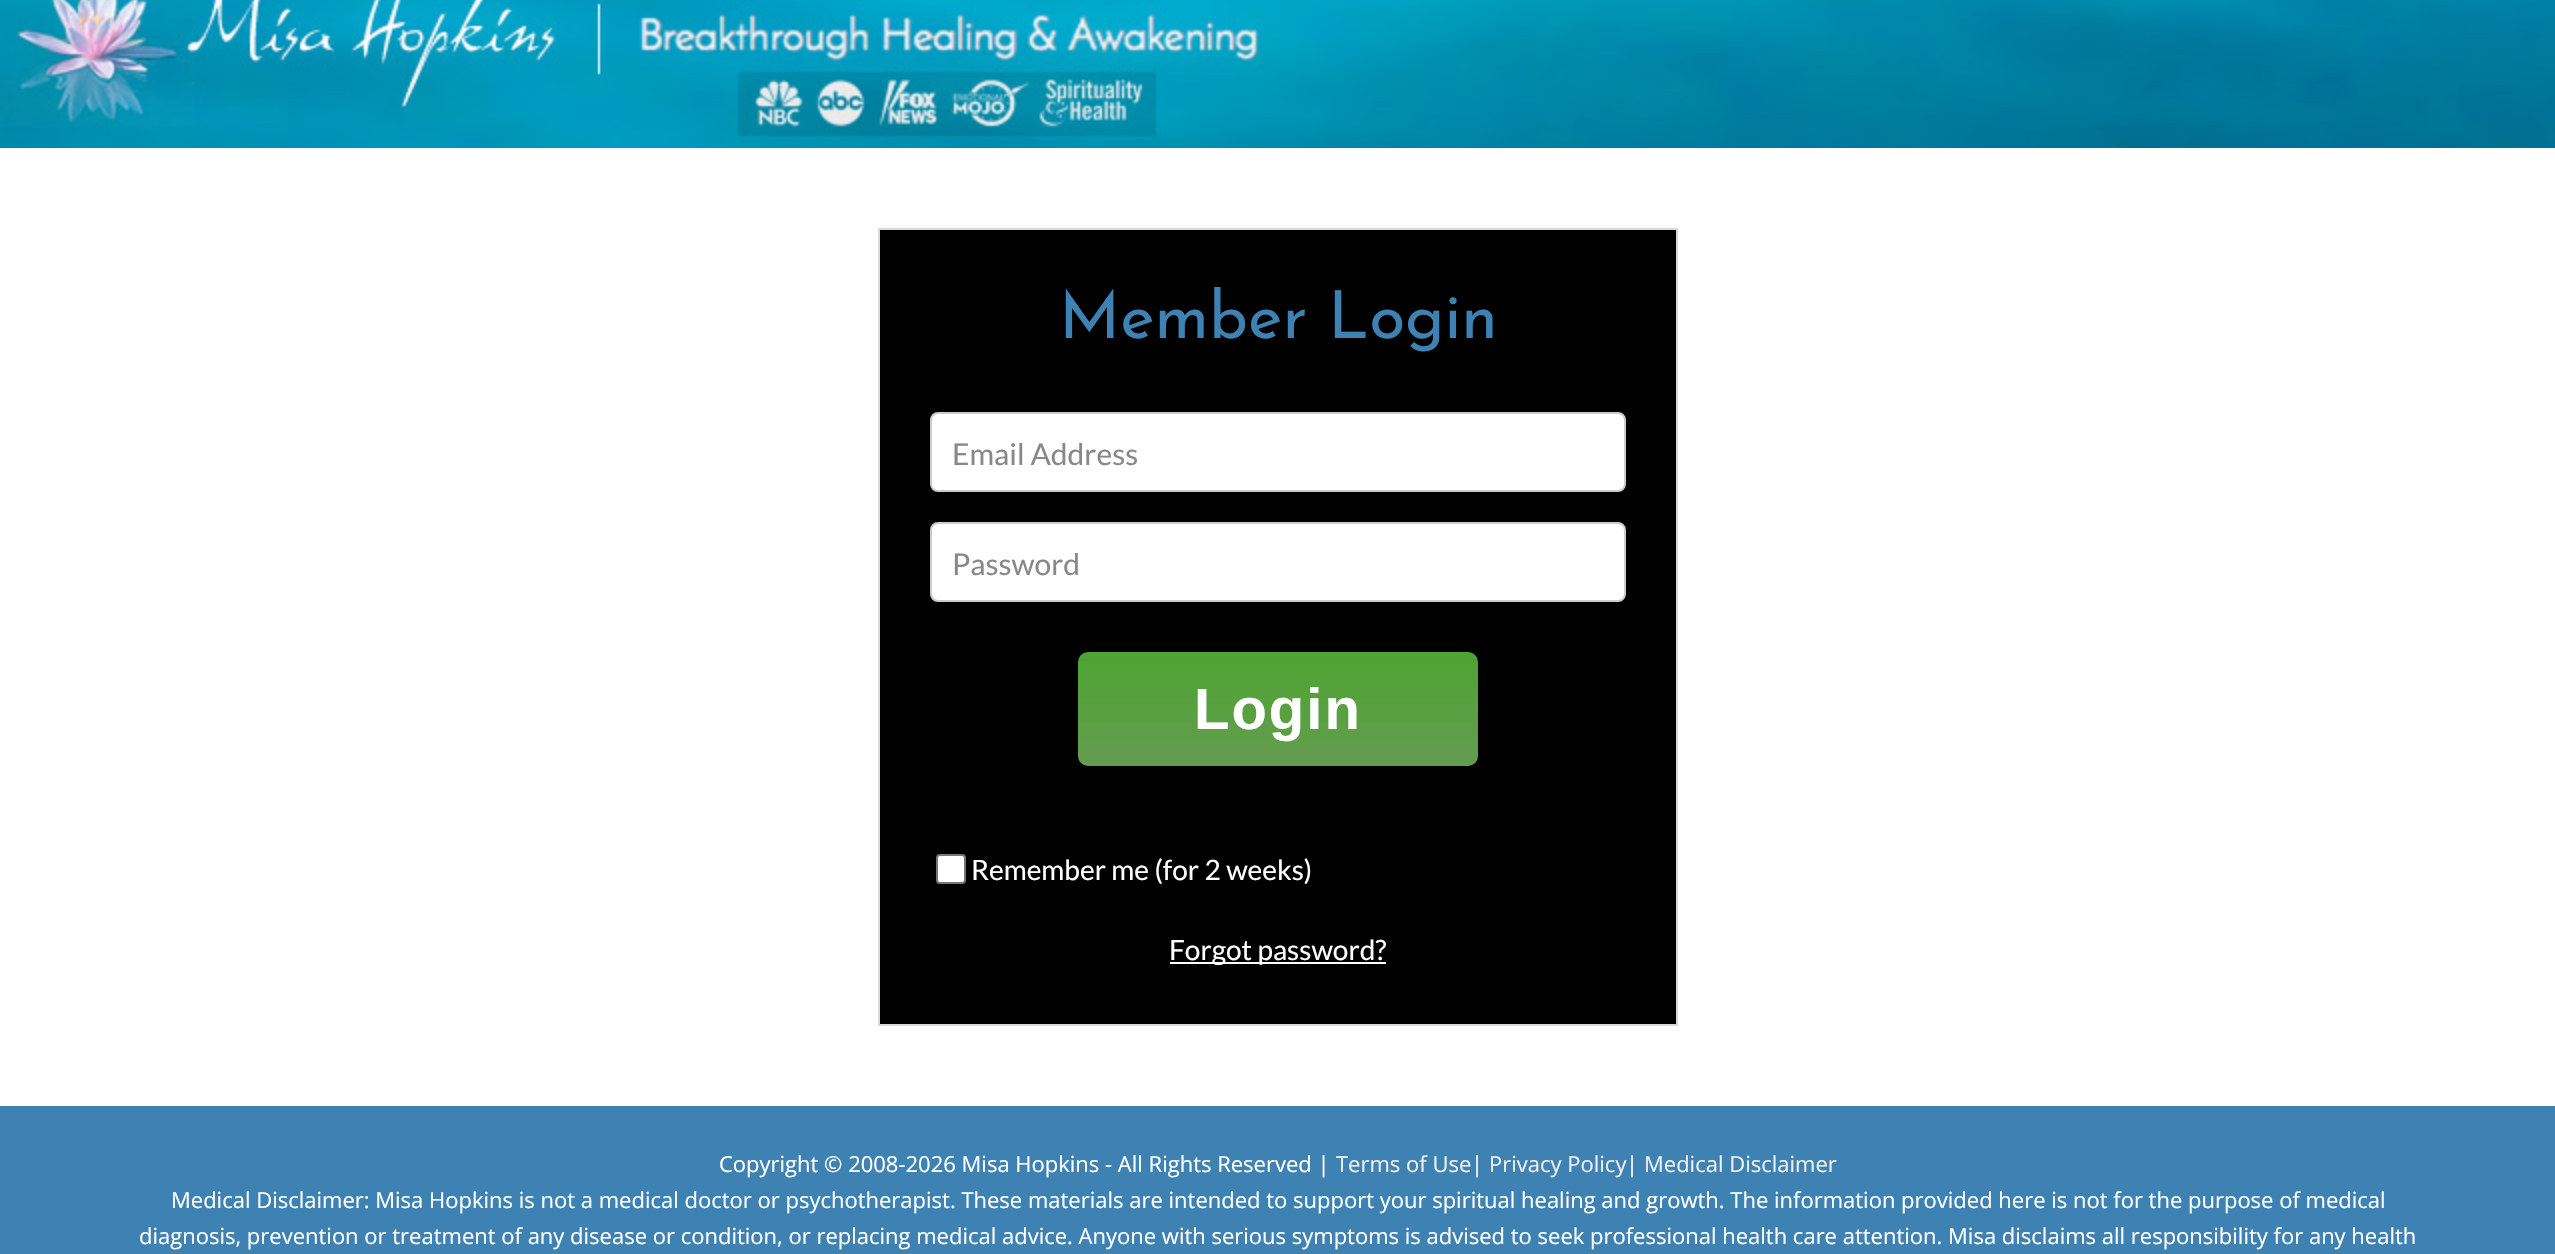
#include "include/core/SkBlurTypes.h"
#include "include/core/SkCanvas.h"
#include "include/core/SkData.h"
#include "include/core/SkFont.h"
#include "include/core/SkFontMgr.h"
#include "include/core/SkImage.h"
#include "include/core/SkMaskFilter.h"
#include "include/core/SkPaint.h"
#include "include/core/SkPathBuilder.h"
#include "include/core/SkTextBlob.h"
#include "include/effects/SkDashPathEffect.h"
#include "include/effects/SkGradientShader.h"
#include "include/utils/SkParsePath.h"

extern sk_sp<SkFontMgr> fontMgr;

void draw(SkCanvas* canvas) {
  SkPaint p;
  p.setAntiAlias(true);
  auto spacedText = [&](const char* s, float x, float y, const SkFont& font, const SkPaint& ink, float letter, float word) {
    std::vector<SkGlyphID> glyphs(font.countText(s, strlen(s), SkTextEncoding::kUTF8));
    std::vector<float> xs(glyphs.size());
    font.textToGlyphs(s, strlen(s), SkTextEncoding::kUTF8, glyphs);
    font.getXPos(glyphs, xs, x);
    float extra = 0;
    for (size_t i = 0; i < glyphs.size(); i++) {
      xs[i] += extra;
      extra += letter + word * (glyphs[i] == font.unicharToGlyph(' '));
    }
    canvas->drawTextBlob(SkTextBlob::MakeFromPosHGlyphs(glyphs, xs, y, font), 0, 0, ink);
  };
  canvas->clear(SK_ColorWHITE);
  canvas->drawImageRect(SkImages::DeferredFromEncodedData(SkData::MakeFromFileName("images/1.png")), SkRect::MakeLTRB(0, 0, 2555, 148), SkSamplingOptions());
  p.setColor(SK_ColorBLACK);
  canvas->drawRect(SkRect::MakeLTRB(879, 229, 1677, 1025), p);
  p.setStyle(SkPaint::kStroke_Style);
  p.setStrokeWidth(2);
  p.setColor(SkColorSetRGB(216, 217, 219));
  canvas->drawRect(SkRect::MakeLTRB(879, 229, 1677, 1025), p);
  p.setStyle(SkPaint::kFill_Style);
  p.setColor(SK_ColorWHITE);
  canvas->drawRoundRect(SkRect::MakeLTRB(931, 413, 1625, 491), 7, 7, p);
  p.setStyle(SkPaint::kStroke_Style);
  p.setColor(SkColorSetRGB(204, 204, 204));
  canvas->drawRoundRect(SkRect::MakeLTRB(931, 413, 1625, 491), 7, 7, p);
  p.setStyle(SkPaint::kFill_Style);
  p.setColor(SK_ColorWHITE);
  canvas->drawRoundRect(SkRect::MakeLTRB(931, 523, 1625, 601), 7, 7, p);
  p.setStyle(SkPaint::kStroke_Style);
  p.setColor(SkColorSetRGB(204, 204, 204));
  canvas->drawRoundRect(SkRect::MakeLTRB(931, 523, 1625, 601), 7, 7, p);
  p.setStyle(SkPaint::kFill_Style);
  {
    const SkColor colors[] = {SkColorSetRGB(78, 164, 49), SkColorSetRGB(100, 156, 81)};
    const float stops[] = {0, 1};
    const SkPoint ends[] = {{1278, 652}, {1278, 766}};
    p.setShader(SkGradientShader::MakeLinear(ends, colors, stops, 2, SkTileMode::kClamp));
    p.setAlpha(255);
  }
  canvas->drawRoundRect(SkRect::MakeLTRB(1078, 652, 1478, 766), 10, 10, p);
  p.setShader(nullptr);
  p.setColor(SK_ColorWHITE);
  canvas->drawRoundRect(SkRect::MakeLTRB(937, 855, 965, 883), 3, 3, p);
  p.setStyle(SkPaint::kStroke_Style);
  p.setColor(SkColorSetRGB(118, 118, 118));
  canvas->drawRoundRect(SkRect::MakeLTRB(937, 855, 965, 883), 3, 3, p);
  p.setStyle(SkPaint::kFill_Style);
  p.setColor(SK_ColorWHITE);
  canvas->drawRect(SkRect::MakeLTRB(1170, 962, 1386, 964), p);
  p.setColor(SkColorSetRGB(62, 129, 179));
  canvas->drawRect(SkRect::MakeLTRB(0, 1106, 2555, 1254), p);
  SkFont font1(fontMgr->matchFamilyStyle("Josefin Sans", SkFontStyle::Normal()), 66);
  font1.setSubpixel(true);
  canvas->drawString("Member Login", 1059, 338, font1, p);
  SkFont font2(fontMgr->matchFamilyStyle("Lato", SkFontStyle::Normal()), 30);
  font2.setSubpixel(true);
  p.setColor(SkColorSetRGB(136, 136, 136));
  canvas->drawString("Email Address", 952, 465, font2, p);
  canvas->drawString("Password", 952, 575, font2, p);
  SkFont font3(fontMgr->matchFamilyStyle("Liberation Sans", SkFontStyle::Bold()), 58);
  font3.setSubpixel(true);
  p.setColor(SK_ColorWHITE);
  spacedText("Login", 1194, 729, font3, p, 2, 0);
  SkFont font4(fontMgr->matchFamilyStyle("Lato", SkFontStyle::Normal()), 28);
  font4.setSubpixel(true);
  canvas->drawString("Remember me (for 2 weeks)", 971, 880, font4, p);
  canvas->drawString("Forgot password?", 1169, 960, font4, p);
  SkFont font5(fontMgr->matchFamilyStyle("Open Sans", SkFontStyle::Normal()), 22);
  font5.setSubpixel(true);
  canvas->drawString("Copyright © 2008-2026 Misa Hopkins - All Rights Reserved |", 719, 1172, font5, p);
  p.setColor(SkColorSetRGB(239, 239, 239));
  canvas->drawString("Terms of Use", 1336, 1172, font5, p);
  p.setColor(SK_ColorWHITE);
  canvas->drawString("|", 1471, 1172, font5, p);
  p.setColor(SkColorSetRGB(239, 239, 239));
  canvas->drawString("Privacy Policy", 1489, 1172, font5, p);
  p.setColor(SK_ColorWHITE);
  canvas->drawString("|", 1626, 1172, font5, p);
  p.setColor(SkColorSetRGB(239, 239, 239));
  canvas->drawString("Medical Disclaimer", 1644, 1172, font5, p);
  p.setColor(SK_ColorWHITE);
  canvas->drawString("Medical Disclaimer: Misa Hopkins is not a medical doctor or psychotherapist. These materials are intended to support your spiritual healing and growth. The information provided here is not for the purpose of medical", 171, 1208, font5, p);
  canvas->drawString("diagnosis, prevention or treatment of any disease or condition, or replacing medical advice. Anyone with serious symptoms is advised to seek professional health care attention. Misa disclaims all responsibility for any health", 139, 1244, font5, p);
}
